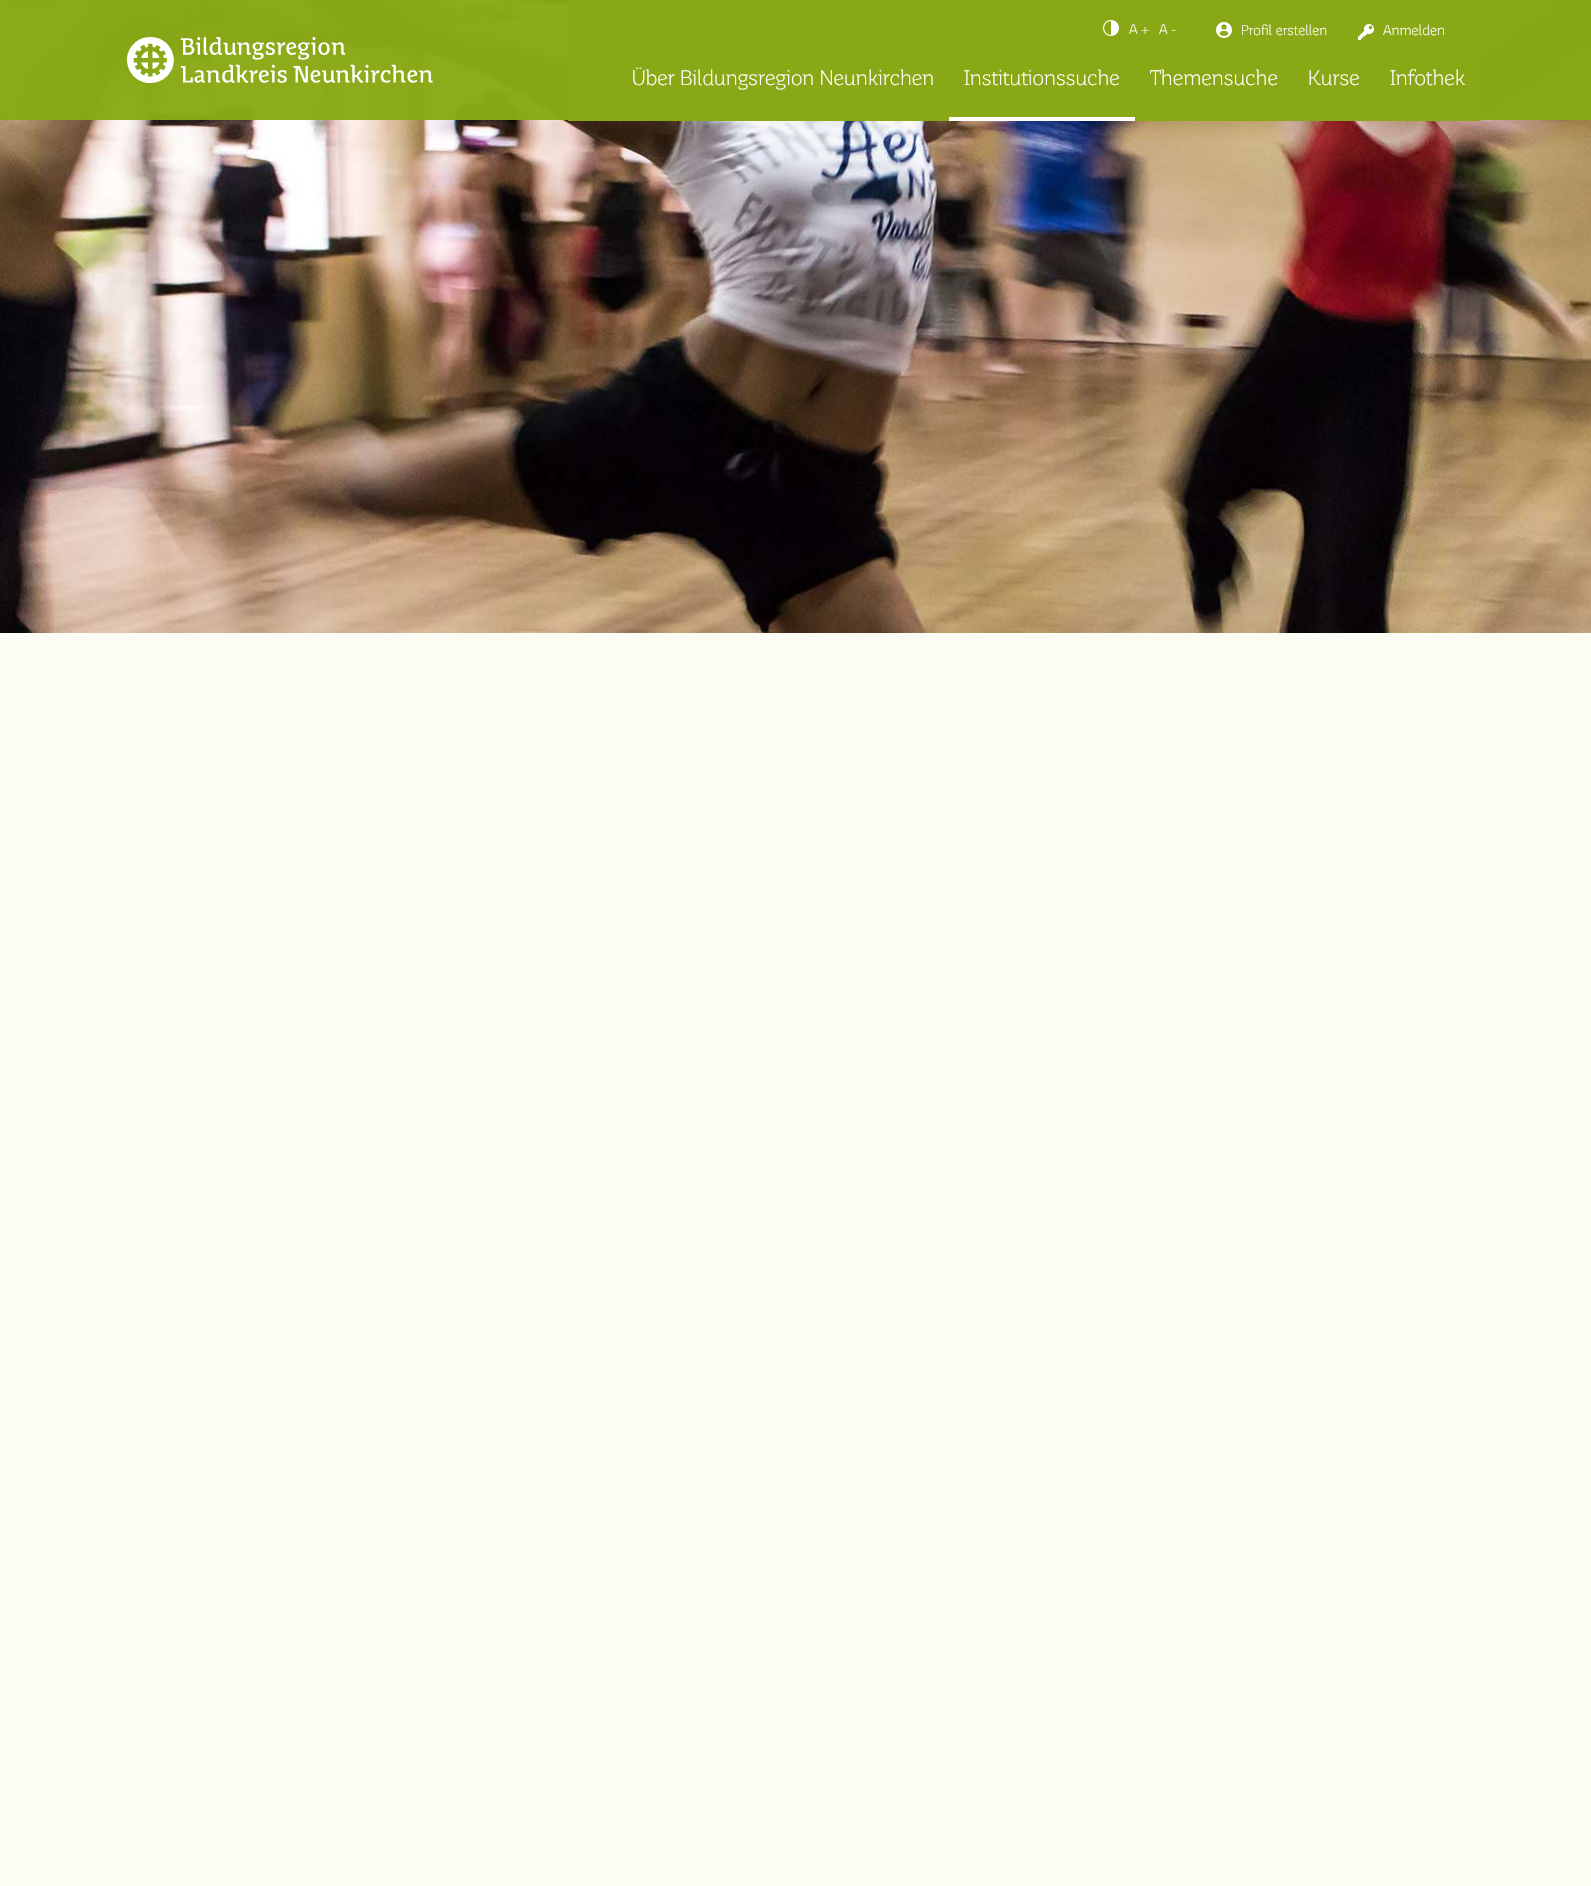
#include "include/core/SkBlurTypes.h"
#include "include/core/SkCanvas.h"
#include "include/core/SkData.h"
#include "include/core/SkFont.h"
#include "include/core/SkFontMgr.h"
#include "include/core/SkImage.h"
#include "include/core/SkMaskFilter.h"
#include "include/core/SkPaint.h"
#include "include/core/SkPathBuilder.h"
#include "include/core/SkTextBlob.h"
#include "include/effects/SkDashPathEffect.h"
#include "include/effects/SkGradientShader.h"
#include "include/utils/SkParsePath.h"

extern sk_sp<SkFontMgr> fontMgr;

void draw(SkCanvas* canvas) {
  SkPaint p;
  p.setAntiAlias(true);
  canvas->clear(SkColorSetRGB(251, 253, 244));
  canvas->drawImageRect(SkImages::DeferredFromEncodedData(SkData::MakeFromFileName("images/1.png")), SkRect::MakeLTRB(0, 0, 1591, 633), SkSamplingOptions());
  p.setColor(SkColorSetARGB(247, 136, 169, 21));
  canvas->drawRect(SkRect::MakeLTRB(0, 0, 1591, 120), p);
  canvas->drawImageRect(SkImages::DeferredFromEncodedData(SkData::MakeFromFileName("images/2.png")), SkRect::MakeLTRB(127, 37, 433, 83), SkSamplingOptions());
  p.setColor(SkColorSetRGB(136, 169, 21));
  canvas->drawRect(SkRect::MakeLTRB(568, 0, 1480, 121), p);
  canvas->drawImageRect(SkImages::DeferredFromEncodedData(SkData::MakeFromFileName("images/3.png")), SkRect::MakeLTRB(1103, 20, 1119, 36), SkSamplingOptions());
  canvas->drawImageRect(SkImages::DeferredFromEncodedData(SkData::MakeFromFileName("images/4.png")), SkRect::MakeLTRB(1216, 22, 1232, 38), SkSamplingOptions());
  canvas->drawImageRect(SkImages::DeferredFromEncodedData(SkData::MakeFromFileName("images/5.png")), SkRect::MakeLTRB(1358, 24, 1374, 40), SkSamplingOptions());
  p.setColor(SK_ColorWHITE);
  canvas->drawRect(SkRect::MakeLTRB(949, 117, 1135, 121), p);
  SkFont font1(fontMgr->matchFamilyStyle("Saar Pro", SkFontStyle(300, SkFontStyle::kNormal_Width, SkFontStyle::kUpright_Slant)), 14);
  font1.setSubpixel(true);
  canvas->drawString("A +", 1129, 34, font1, p);
  canvas->drawString("A -", 1159, 34, font1, p);
  canvas->drawString("Profil erstellen", 1241, 35, font1, p);
  canvas->drawString("Anmelden", 1383, 35, font1, p);
  SkFont font2(fontMgr->matchFamilyStyle("Saar Pro", SkFontStyle(300, SkFontStyle::kNormal_Width, SkFontStyle::kUpright_Slant)), 21);
  font2.setSubpixel(true);
  canvas->drawString("Über Bildungsregion Neunkirchen", 632, 85, font2, p);
  canvas->drawString("Institutionssuche", 964, 85, font2, p);
  canvas->drawString("Themensuche", 1150, 85, font2, p);
  canvas->drawString("Kurse", 1308, 85, font2, p);
  canvas->drawString("Infothek", 1390, 85, font2, p);
}
